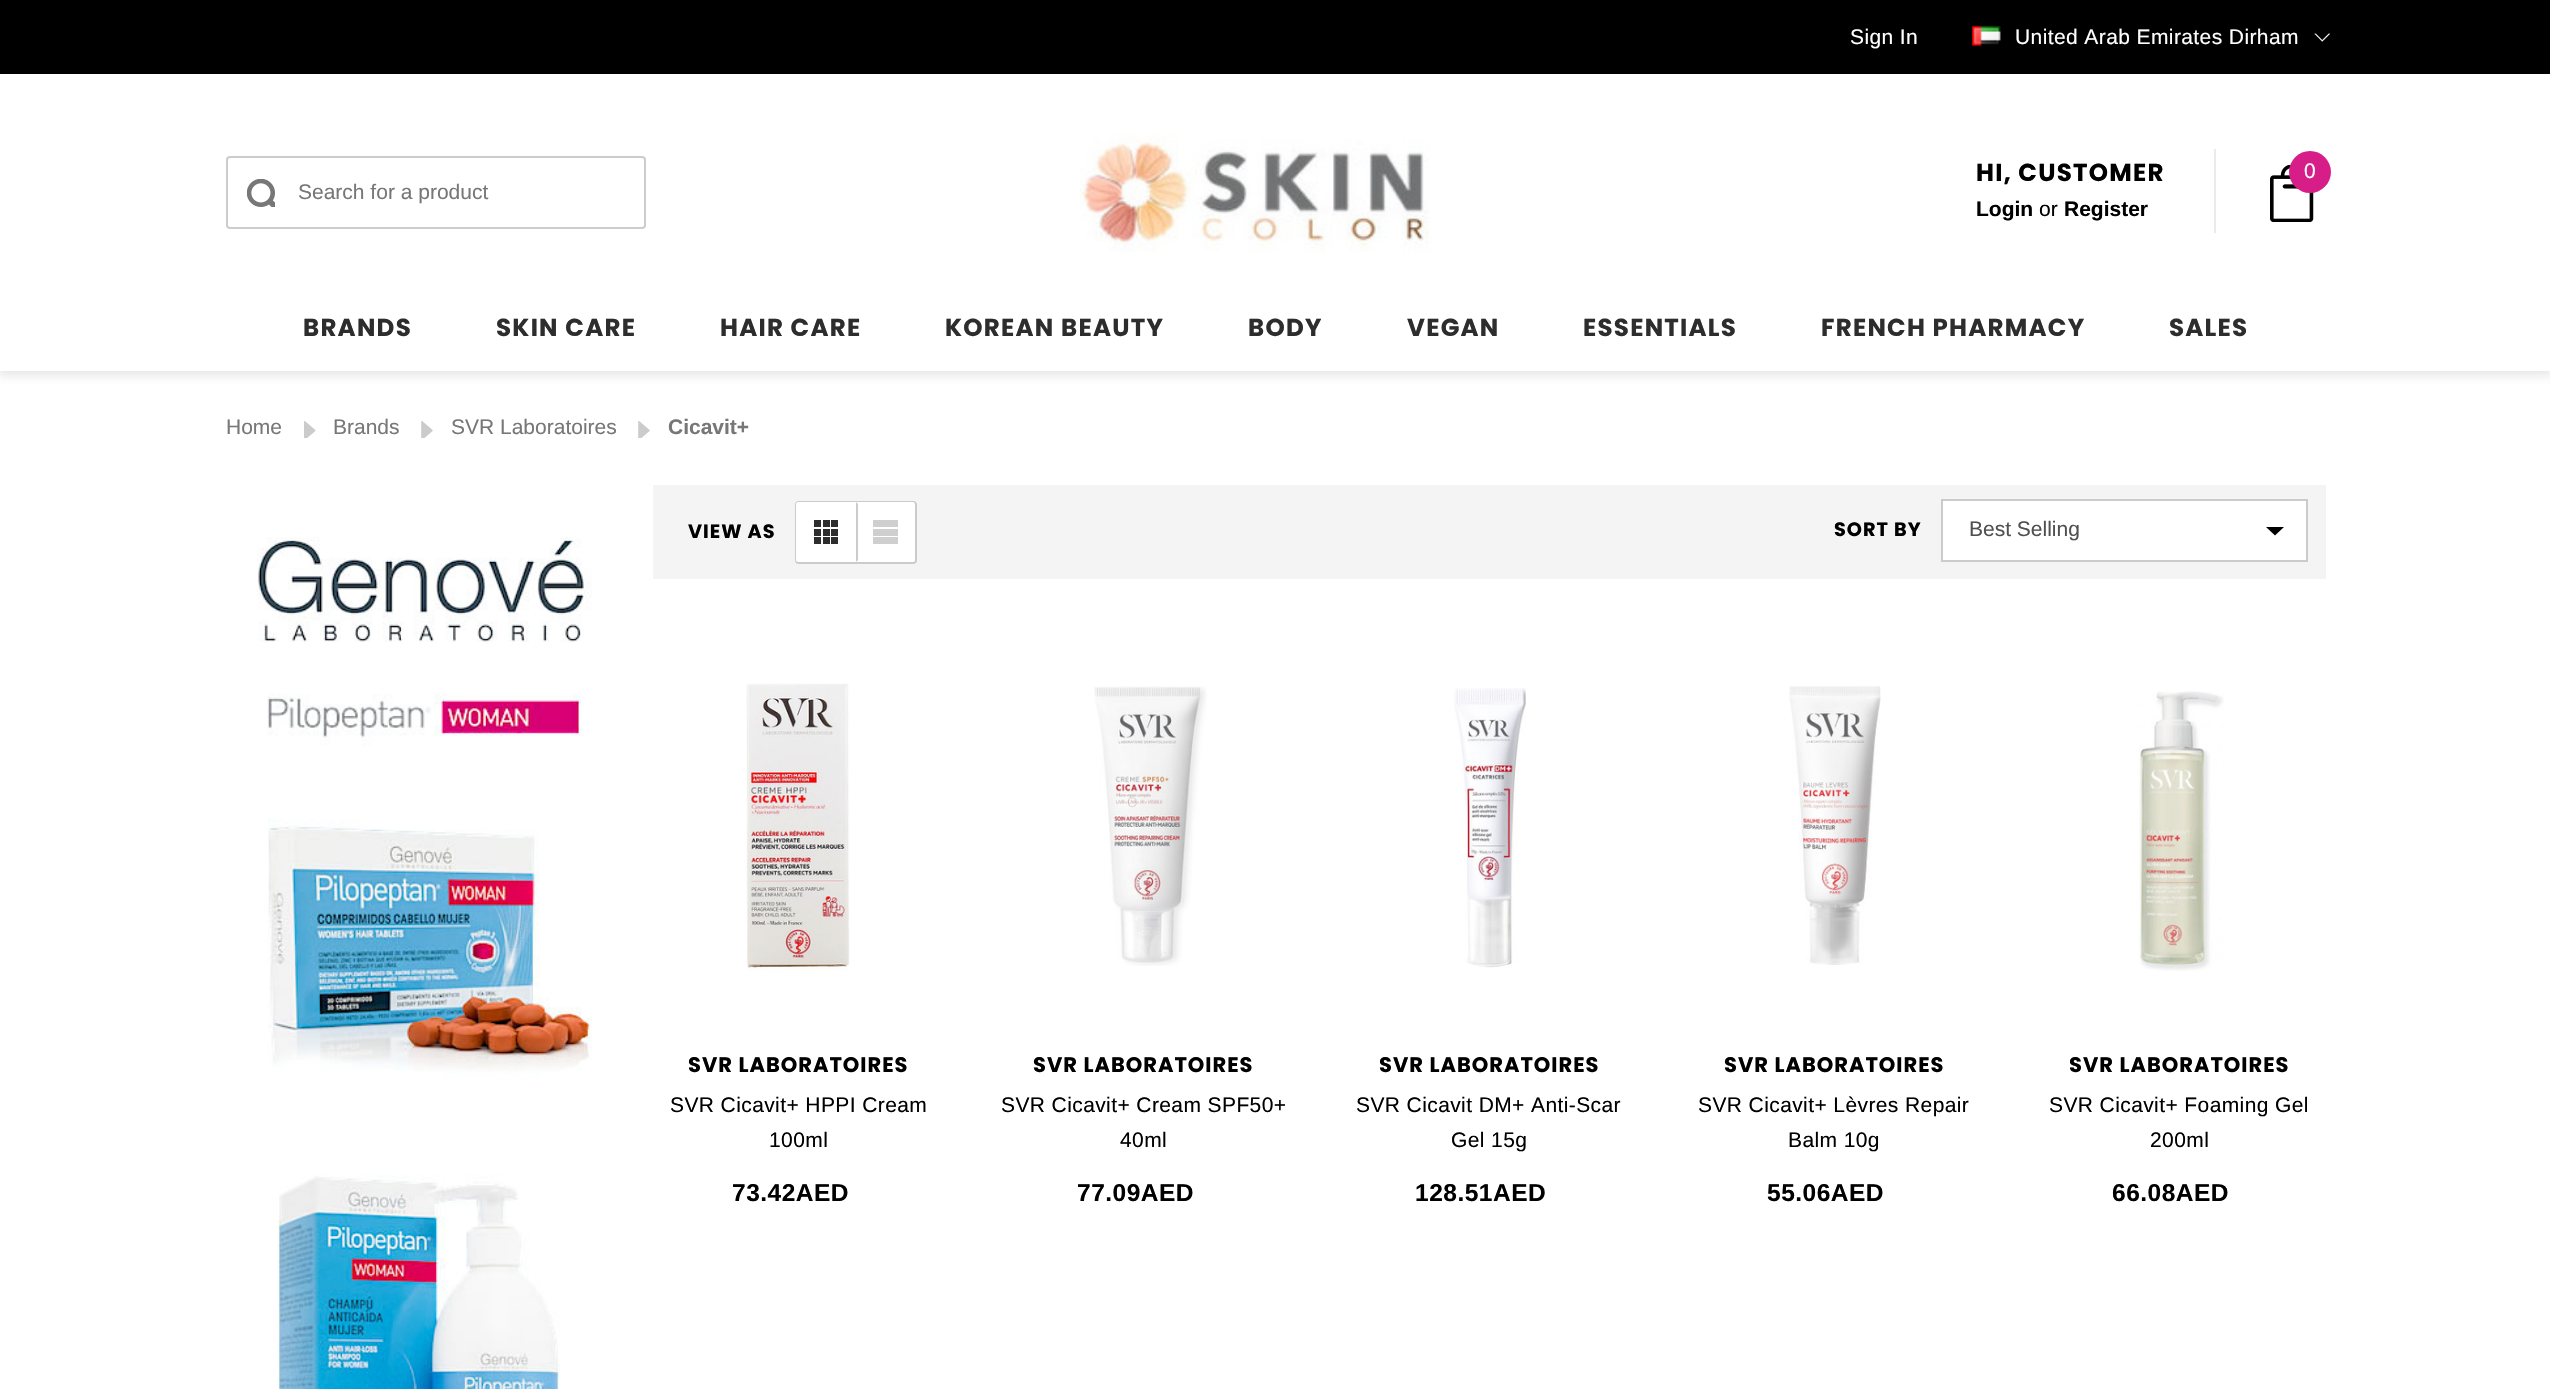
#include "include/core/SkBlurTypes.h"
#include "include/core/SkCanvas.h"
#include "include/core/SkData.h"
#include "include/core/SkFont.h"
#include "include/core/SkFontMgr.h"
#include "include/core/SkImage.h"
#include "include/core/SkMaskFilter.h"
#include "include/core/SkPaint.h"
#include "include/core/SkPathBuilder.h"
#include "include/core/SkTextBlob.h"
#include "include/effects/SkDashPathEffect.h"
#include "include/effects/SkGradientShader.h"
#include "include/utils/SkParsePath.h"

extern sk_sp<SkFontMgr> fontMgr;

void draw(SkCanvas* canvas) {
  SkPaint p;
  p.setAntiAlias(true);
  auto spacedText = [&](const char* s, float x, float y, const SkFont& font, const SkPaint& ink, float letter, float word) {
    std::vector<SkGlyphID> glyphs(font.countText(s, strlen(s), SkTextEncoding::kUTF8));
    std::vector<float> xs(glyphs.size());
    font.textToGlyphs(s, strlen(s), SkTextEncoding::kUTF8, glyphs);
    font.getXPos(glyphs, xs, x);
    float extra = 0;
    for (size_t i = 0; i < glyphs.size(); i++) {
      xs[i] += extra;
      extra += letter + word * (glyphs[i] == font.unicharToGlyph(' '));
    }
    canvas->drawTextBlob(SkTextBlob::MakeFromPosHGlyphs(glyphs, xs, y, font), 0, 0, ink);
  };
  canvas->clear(SK_ColorWHITE);
  canvas->save();
  canvas->clipRect(SkRect::MakeLTRB(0, 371, 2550, 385));
  p.setColor(SkColorSetRGB(229, 229, 229));
  p.setMaskFilter(SkMaskFilter::MakeBlur(kNormal_SkBlurStyle, 5));
  canvas->drawRect(SkRect::MakeLTRB(-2, 0, 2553, 375), p);
  p.setMaskFilter(nullptr);
  canvas->restore();
  p.setColor(SK_ColorBLACK);
  canvas->drawRect(SkRect::MakeLTRB(0, 0, 2550, 74), p);
  canvas->drawImageRect(SkImages::DeferredFromEncodedData(SkData::MakeFromFileName("images/1.png")), SkRect::MakeLTRB(1972, 25, 2001, 46), SkSamplingOptions());
  canvas->drawImageRect(SkImages::DeferredFromEncodedData(SkData::MakeFromFileName("images/2.png")), SkRect::MakeLTRB(2314, 33, 2331, 42), SkSamplingOptions());
  p.setStyle(SkPaint::kStroke_Style);
  p.setStrokeWidth(2);
  p.setColor(SkColorSetRGB(204, 204, 204));
  canvas->drawRoundRect(SkRect::MakeLTRB(227, 157, 645, 228), 3, 3, p);
  canvas->drawImageRect(SkImages::DeferredFromEncodedData(SkData::MakeFromFileName("images/3.png")), SkRect::MakeLTRB(247, 179, 275, 207), SkSamplingOptions());
  canvas->drawImageRect(SkImages::DeferredFromEncodedData(SkData::MakeFromFileName("images/4.png")), SkRect::MakeLTRB(1080, 133, 1430, 252), SkSamplingOptions());
  p.setStyle(SkPaint::kFill_Style);
  p.setColor(SkColorSetRGB(235, 235, 235));
  canvas->drawRect(SkRect::MakeLTRB(2214, 149, 2216, 233), p);
  canvas->drawImageRect(SkImages::DeferredFromEncodedData(SkData::MakeFromFileName("images/5.png")), SkRect::MakeLTRB(2270, 165, 2314, 222), SkSamplingOptions());
  p.setColor(SkColorSetRGB(215, 30, 136));
  canvas->drawCircle(2310, 172, 21, p);
  canvas->drawImageRect(SkImages::DeferredFromEncodedData(SkData::MakeFromFileName("images/6.png")), SkRect::MakeLTRB(304, 421, 316, 438), SkSamplingOptions());
  canvas->drawImageRect(SkImages::DeferredFromEncodedData(SkData::MakeFromFileName("images/7.png")), SkRect::MakeLTRB(421, 421, 433, 438), SkSamplingOptions());
  canvas->drawImageRect(SkImages::DeferredFromEncodedData(SkData::MakeFromFileName("images/7.png")), SkRect::MakeLTRB(638, 421, 650, 438), SkSamplingOptions());
  canvas->drawImageRect(SkImages::DeferredFromEncodedData(SkData::MakeFromFileName("images/8.png")), SkRect::MakeLTRB(257, 537, 592, 1389), SkSamplingOptions());
  p.setColor(SkColorSetRGB(244, 244, 244));
  canvas->drawRect(SkRect::MakeLTRB(653, 485, 2326, 579), p);
  p.setStyle(SkPaint::kStroke_Style);
  p.setColor(SkColorSetRGB(203, 203, 203));
  canvas->drawRoundRect(SkRect::MakeLTRB(796, 502, 916, 563), 3, 3, p);
  p.setStyle(SkPaint::kFill_Style);
  p.setColor(SK_ColorWHITE);
  canvas->drawPath(SkPathBuilder().moveTo(798, 502).lineTo(856, 502).lineTo(856, 562).lineTo(798, 562).cubicTo(797, 562, 796, 561, 796, 560).lineTo(796, 504).cubicTo(796, 503, 797, 502, 798, 502).close().detach(), p);
  p.setColor(SkColorSetRGB(45, 45, 45));
  canvas->drawRect(SkRect::MakeLTRB(823, 520, 830, 527), p);
  canvas->drawRect(SkRect::MakeLTRB(814, 520, 821, 527), p);
  canvas->drawRect(SkRect::MakeLTRB(831, 520, 838, 527), p);
  canvas->drawRect(SkRect::MakeLTRB(823, 529, 830, 536), p);
  canvas->drawRect(SkRect::MakeLTRB(814, 529, 821, 536), p);
  canvas->drawRect(SkRect::MakeLTRB(831, 529, 838, 536), p);
  canvas->drawRect(SkRect::MakeLTRB(823, 537, 830, 544), p);
  canvas->drawRect(SkRect::MakeLTRB(814, 537, 821, 544), p);
  canvas->drawRect(SkRect::MakeLTRB(831, 537, 838, 544), p);
  p.setColor(SK_ColorWHITE);
  canvas->drawPath(SkPathBuilder().moveTo(856, 502).lineTo(913, 502).cubicTo(914, 502, 915, 503, 915, 504).lineTo(915, 560).cubicTo(915, 561, 914, 562, 913, 562).lineTo(856, 562).close().detach(), p);
  p.setColor(SkColorSetRGB(203, 203, 203));
  canvas->drawPath(SkPathBuilder().moveTo(856, 562).lineTo(856, 502).lineTo(858, 504).lineTo(858, 560).close().detach(), p);
  p.setColor(SkColorSetRGB(207, 207, 207));
  canvas->drawRect(SkRect::MakeLTRB(873, 520, 898, 527), p);
  canvas->drawRect(SkRect::MakeLTRB(873, 529, 898, 536), p);
  canvas->drawRect(SkRect::MakeLTRB(873, 537, 898, 544), p);
  p.setColor(SK_ColorWHITE);
  canvas->drawRect(SkRect::MakeLTRB(1943, 501, 2306, 560), p);
  p.setColor(SK_ColorBLACK);
  canvas->drawPath(SkPathBuilder().moveTo(2266, 527).lineTo(2275, 535.5f).lineTo(2284, 527).close().detach(), p);
  p.setStyle(SkPaint::kStroke_Style);
  p.setColor(SkColorSetRGB(203, 203, 203));
  canvas->drawRect(SkRect::MakeLTRB(1942, 500, 2307, 561), p);
  canvas->drawImageRect(SkImages::DeferredFromEncodedData(SkData::MakeFromFileName("images/9.png")), SkRect::MakeLTRB(746, 683, 850, 971), SkSamplingOptions());
  canvas->drawImageRect(SkImages::DeferredFromEncodedData(SkData::MakeFromFileName("images/10.png")), SkRect::MakeLTRB(1094, 686, 1207, 966), SkSamplingOptions());
  canvas->drawImageRect(SkImages::DeferredFromEncodedData(SkData::MakeFromFileName("images/11.png")), SkRect::MakeLTRB(1454, 688, 1526, 968), SkSamplingOptions());
  canvas->drawImageRect(SkImages::DeferredFromEncodedData(SkData::MakeFromFileName("images/12.png")), SkRect::MakeLTRB(1789, 686, 1881, 965), SkSamplingOptions());
  canvas->drawImageRect(SkImages::DeferredFromEncodedData(SkData::MakeFromFileName("images/13.png")), SkRect::MakeLTRB(2139, 691, 2224, 971), SkSamplingOptions());
  SkFont font1(fontMgr->matchFamilyStyle("Arimo", SkFontStyle::Normal()), 21);
  font1.setSubpixel(true);
  p.setStyle(SkPaint::kFill_Style);
  p.setColor(SK_ColorWHITE);
  spacedText("Sign In", 1850, 44, font1, p, 0.4f, 0);
  spacedText("United Arab Emirates Dirham", 2015, 44, font1, p, 0.4f, 0);
  p.setColor(SkColorSetRGB(119, 119, 119));
  canvas->drawString("Search for a product", 298, 199, font1, p);
  SkFont font2(fontMgr->matchFamilyStyle("Poppins", SkFontStyle::Bold()), 24.5f);
  font2.setSubpixel(true);
  p.setColor(SK_ColorBLACK);
  spacedText("HI, CUSTOMER", 1976, 181, font2, p, 1.25f, 0);
  SkFont font3(fontMgr->matchFamilyStyle("Arimo", SkFontStyle::Bold()), 21);
  font3.setSubpixel(true);
  canvas->drawString("Login", 1976, 216, font3, p);
  canvas->drawString("or", 2039, 216, font1, p);
  canvas->drawString("Register", 2064, 216, font3, p);
  p.setColor(SK_ColorWHITE);
  canvas->drawString("0", 2304, 178, font1, p);
  p.setColor(SkColorSetRGB(45, 45, 45));
  spacedText("BRANDS", 303, 336, font2, p, 1.25f, 0);
  spacedText("SKIN CARE", 496, 336, font2, p, 1.25f, 0);
  spacedText("HAIR CARE", 720, 336, font2, p, 1.25f, 0);
  spacedText("KOREAN BEAUTY", 945, 336, font2, p, 1.25f, 0);
  spacedText("BODY", 1248, 336, font2, p, 1.25f, 0);
  spacedText("VEGAN", 1407, 336, font2, p, 1.25f, 0);
  spacedText("ESSENTIALS", 1583, 336, font2, p, 1.25f, 0);
  spacedText("FRENCH PHARMACY", 1821, 336, font2, p, 1.25f, 0);
  spacedText("SALES", 2169, 336, font2, p, 1.25f, 0);
  p.setColor(SkColorSetRGB(119, 119, 119));
  canvas->drawString("Home", 226, 434, font1, p);
  canvas->drawString("Brands", 333, 434, font1, p);
  canvas->drawString("SVR Laboratoires", 451, 434, font1, p);
  canvas->drawString("Cicavit+", 668, 434, font3, p);
  SkFont font4(fontMgr->matchFamilyStyle("Poppins", SkFontStyle::Bold()), 19.25f);
  font4.setSubpixel(true);
  p.setColor(SK_ColorBLACK);
  spacedText("VIEW AS", 688, 538, font4, p, 1, 0);
  spacedText("SORT BY", 1834, 536, font4, p, 1, 0);
  p.setColor(SkColorSetRGB(80, 80, 80));
  canvas->drawString("Best Selling", 1969, 536, font1, p);
  SkFont font5(fontMgr->matchFamilyStyle("Poppins", SkFontStyle::Bold()), 21);
  font5.setSubpixel(true);
  p.setColor(SK_ColorBLACK);
  spacedText("SVR LABORATOIRES", 688, 1072, font5, p, 1, 0);
  spacedText("SVR Cicavit+ HPPI Cream", 670, 1112, font1, p, 0.4f, 0);
  spacedText("100ml", 769, 1147, font1, p, 0.4f, 0);
  SkFont font6(fontMgr->matchFamilyStyle("Arimo", SkFontStyle::Bold()), 24.5f);
  font6.setSubpixel(true);
  spacedText("73.42AED", 732, 1201, font6, p, 0.5f, 0);
  spacedText("SVR LABORATOIRES", 1033, 1072, font5, p, 1, 0);
  spacedText("SVR Cicavit+ Cream SPF50+", 1001, 1112, font1, p, 0.4f, 0);
  spacedText("40ml", 1120, 1147, font1, p, 0.4f, 0);
  spacedText("77.09AED", 1077, 1201, font6, p, 0.5f, 0);
  spacedText("SVR LABORATOIRES", 1379, 1072, font5, p, 1, 0);
  spacedText("SVR Cicavit DM+ Anti-Scar", 1356, 1112, font1, p, 0.4f, 0);
  spacedText("Gel 15g", 1451, 1147, font1, p, 0.4f, 0);
  spacedText("128.51AED", 1415, 1201, font6, p, 0.5f, 0);
  spacedText("SVR LABORATOIRES", 1724, 1072, font5, p, 1, 0);
  spacedText("SVR Cicavit+ Lèvres Repair", 1698, 1112, font1, p, 0.4f, 0);
  spacedText("Balm 10g", 1788, 1147, font1, p, 0.4f, 0);
  spacedText("55.06AED", 1767, 1201, font6, p, 0.5f, 0);
  spacedText("SVR LABORATOIRES", 2069, 1072, font5, p, 1, 0);
  spacedText("SVR Cicavit+ Foaming Gel", 2049, 1112, font1, p, 0.4f, 0);
  spacedText("200ml", 2150, 1147, font1, p, 0.4f, 0);
  spacedText("66.08AED", 2112, 1201, font6, p, 0.5f, 0);
}
